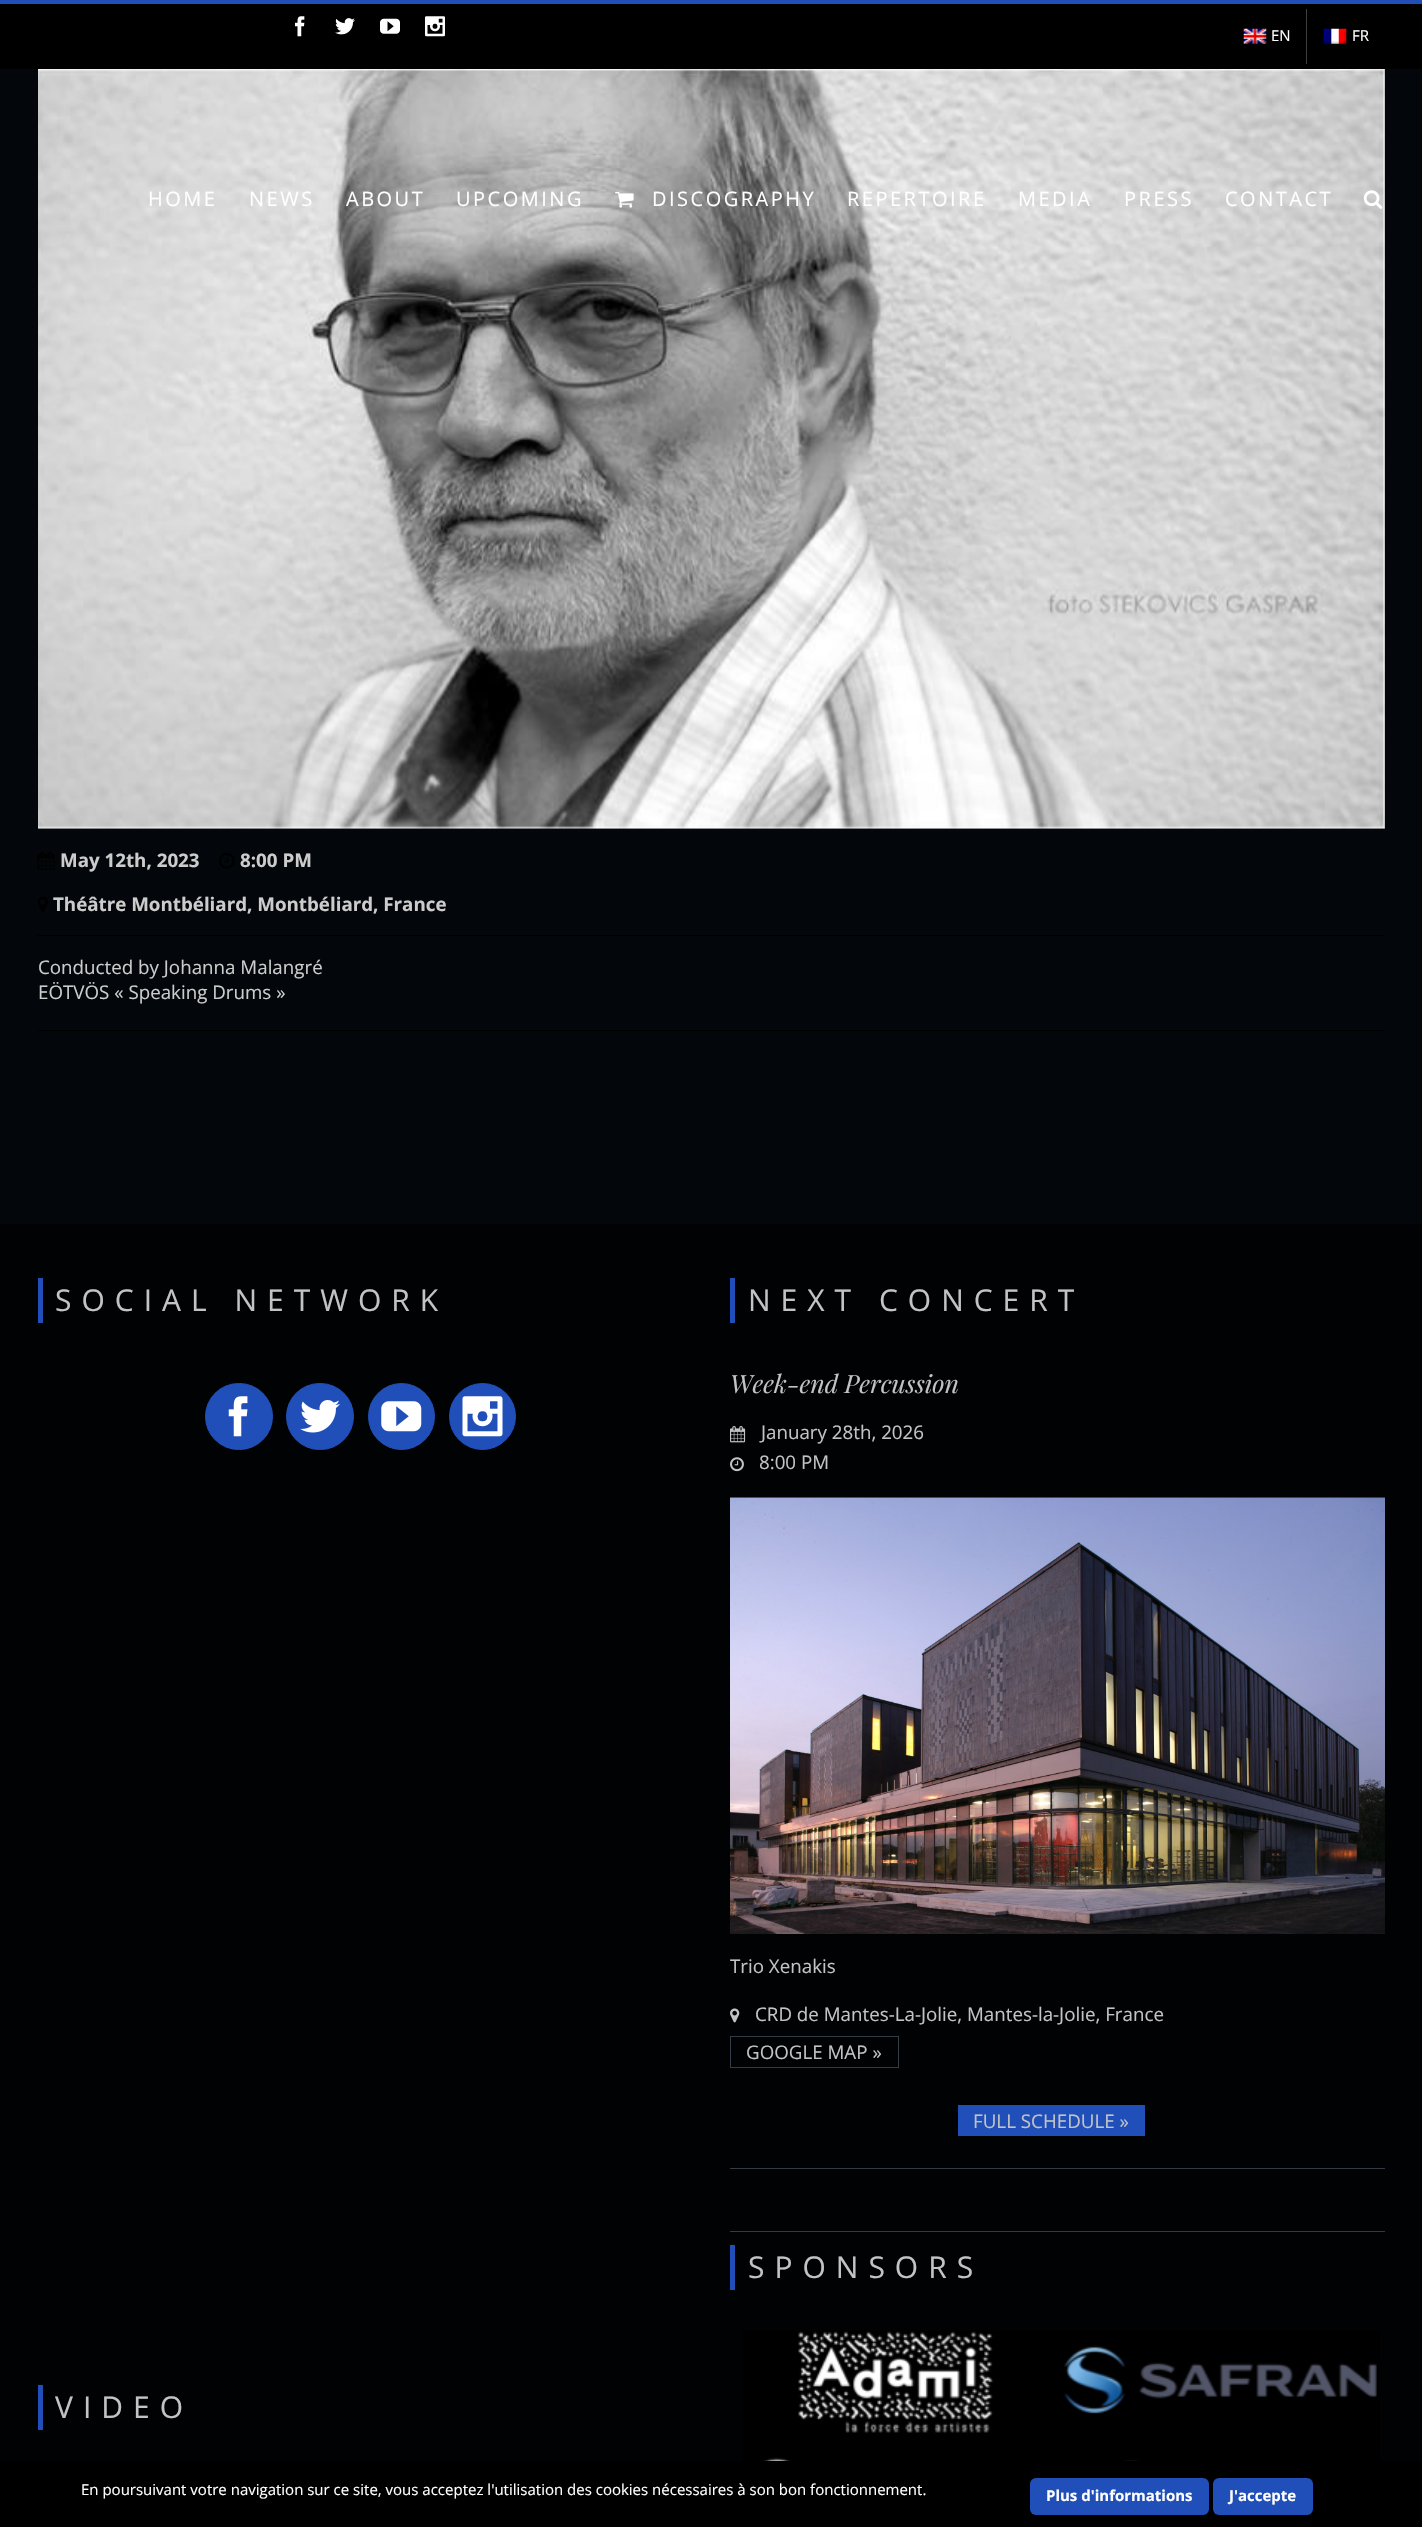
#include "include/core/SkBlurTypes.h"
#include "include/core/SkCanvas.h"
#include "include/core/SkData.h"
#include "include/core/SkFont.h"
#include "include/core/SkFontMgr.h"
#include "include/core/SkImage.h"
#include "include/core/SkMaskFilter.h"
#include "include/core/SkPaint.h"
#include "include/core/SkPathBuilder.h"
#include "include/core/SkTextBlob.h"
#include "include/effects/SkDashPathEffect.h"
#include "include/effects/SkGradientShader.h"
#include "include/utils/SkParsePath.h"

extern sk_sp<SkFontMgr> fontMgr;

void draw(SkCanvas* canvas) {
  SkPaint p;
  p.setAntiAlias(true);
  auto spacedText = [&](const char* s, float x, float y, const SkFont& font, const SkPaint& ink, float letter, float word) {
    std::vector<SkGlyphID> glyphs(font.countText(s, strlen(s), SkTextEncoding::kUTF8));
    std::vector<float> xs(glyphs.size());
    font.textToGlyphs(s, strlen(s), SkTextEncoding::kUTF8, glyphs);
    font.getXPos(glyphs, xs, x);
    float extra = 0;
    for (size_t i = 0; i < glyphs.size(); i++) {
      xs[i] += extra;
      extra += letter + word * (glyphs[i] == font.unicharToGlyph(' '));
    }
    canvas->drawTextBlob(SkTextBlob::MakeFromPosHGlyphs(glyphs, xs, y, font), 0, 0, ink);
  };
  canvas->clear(SkColorSetRGB(3, 6, 10));
  p.setColor(SK_ColorBLACK);
  canvas->drawRect(SkRect::MakeLTRB(0, 4, 1422, 69), p);
  p.setColor(SkColorSetRGB(32, 79, 185));
  canvas->drawRect(SkRect::MakeLTRB(0, 0, 1422, 4), p);
  canvas->drawImageRect(SkImages::DeferredFromEncodedData(SkData::MakeFromFileName("images/1.png")), SkRect::MakeLTRB(295, 16, 305, 37), SkSamplingOptions());
  canvas->drawImageRect(SkImages::DeferredFromEncodedData(SkData::MakeFromFileName("images/2.png")), SkRect::MakeLTRB(335, 18, 355, 35), SkSamplingOptions());
  canvas->drawImageRect(SkImages::DeferredFromEncodedData(SkData::MakeFromFileName("images/3.png")), SkRect::MakeLTRB(380, 18, 400, 34), SkSamplingOptions());
  canvas->drawImageRect(SkImages::DeferredFromEncodedData(SkData::MakeFromFileName("images/4.png")), SkRect::MakeLTRB(425, 16, 445, 37), SkSamplingOptions());
  canvas->drawImageRect(SkImages::DeferredFromEncodedData(SkData::MakeFromFileName("images/5.png")), SkRect::MakeLTRB(1243, 28, 1267, 44), SkSamplingOptions());
  p.setColor(SkColorSetRGB(62, 62, 62));
  canvas->drawRect(SkRect::MakeLTRB(1306, 9, 1307, 64), p);
  canvas->drawImageRect(SkImages::DeferredFromEncodedData(SkData::MakeFromFileName("images/6.png")), SkRect::MakeLTRB(1323, 28, 1347, 44), SkSamplingOptions());
  canvas->drawImageRect(SkImages::DeferredFromEncodedData(SkData::MakeFromFileName("images/9.png")), SkRect::MakeLTRB(38, 69, 1385, 829), SkSamplingOptions());
  canvas->drawImageRect(SkImages::DeferredFromEncodedData(SkData::MakeFromFileName("images/7.png")), SkRect::MakeLTRB(615, 191, 634, 208), SkSamplingOptions());
  canvas->drawImageRect(SkImages::DeferredFromEncodedData(SkData::MakeFromFileName("images/8.png")), SkRect::MakeLTRB(1363, 190, 1383, 209), SkSamplingOptions());
  canvas->drawImageRect(SkImages::DeferredFromEncodedData(SkData::MakeFromFileName("images/10.png")), SkRect::MakeLTRB(37, 851, 55, 870), SkSamplingOptions());
  canvas->drawImageRect(SkImages::DeferredFromEncodedData(SkData::MakeFromFileName("images/11.png")), SkRect::MakeLTRB(219, 853, 235, 869), SkSamplingOptions());
  canvas->drawImageRect(SkImages::DeferredFromEncodedData(SkData::MakeFromFileName("images/12.png")), SkRect::MakeLTRB(37, 896, 48, 913), SkSamplingOptions());
  p.setColor(SK_ColorBLACK);
  canvas->drawRect(SkRect::MakeLTRB(38, 935, 1385, 936), p);
  canvas->drawRect(SkRect::MakeLTRB(38, 1030, 1385, 1031), p);
  p.setColor(SkColorSetRGB(1, 2, 4));
  canvas->drawRect(SkRect::MakeLTRB(0, 1224, 1422, 2461), p);
  p.setColor(SkColorSetRGB(32, 79, 185));
  canvas->drawRect(SkRect::MakeLTRB(38, 1278, 43, 1323), p);
  canvas->drawRoundRect(SkRect::MakeLTRB(205.5f, 1383.5f, 272.5f, 1449.5f), 33, 33, p);
  p.setStyle(SkPaint::kStroke_Style);
  p.setStrokeWidth(1);
  canvas->drawRoundRect(SkRect::MakeLTRB(205.5f, 1383.5f, 272.5f, 1449.5f), 33, 33, p);
  canvas->drawImageRect(SkImages::DeferredFromEncodedData(SkData::MakeFromFileName("images/13.png")), SkRect::MakeLTRB(228, 1396, 248, 1437), SkSamplingOptions());
  p.setStyle(SkPaint::kFill_Style);
  canvas->drawRoundRect(SkRect::MakeLTRB(286.5f, 1383.5f, 353.5f, 1449.5f), 33, 33, p);
  p.setStyle(SkPaint::kStroke_Style);
  canvas->drawRoundRect(SkRect::MakeLTRB(286.5f, 1383.5f, 353.5f, 1449.5f), 33, 33, p);
  canvas->drawImageRect(SkImages::DeferredFromEncodedData(SkData::MakeFromFileName("images/14.png")), SkRect::MakeLTRB(300, 1400, 340, 1433), SkSamplingOptions());
  p.setStyle(SkPaint::kFill_Style);
  canvas->drawCircle(401.5f, 1416.5f, 33, p);
  p.setStyle(SkPaint::kStroke_Style);
  canvas->drawCircle(401.5f, 1416.5f, 33, p);
  canvas->drawImageRect(SkImages::DeferredFromEncodedData(SkData::MakeFromFileName("images/15.png")), SkRect::MakeLTRB(381, 1401, 422, 1432), SkSamplingOptions());
  p.setStyle(SkPaint::kFill_Style);
  canvas->drawCircle(482.5f, 1416.5f, 33, p);
  p.setStyle(SkPaint::kStroke_Style);
  canvas->drawCircle(482.5f, 1416.5f, 33, p);
  canvas->drawImageRect(SkImages::DeferredFromEncodedData(SkData::MakeFromFileName("images/16.png")), SkRect::MakeLTRB(462, 1396, 503, 1437), SkSamplingOptions());
  p.setStyle(SkPaint::kFill_Style);
  canvas->drawRect(SkRect::MakeLTRB(730, 1278, 735, 1323), p);
  canvas->drawImageRect(SkImages::DeferredFromEncodedData(SkData::MakeFromFileName("images/17.png")), SkRect::MakeLTRB(730, 1426, 746, 1443), SkSamplingOptions());
  canvas->drawImageRect(SkImages::DeferredFromEncodedData(SkData::MakeFromFileName("images/18.png")), SkRect::MakeLTRB(730, 1457, 744, 1472), SkSamplingOptions());
  canvas->drawImageRect(SkImages::DeferredFromEncodedData(SkData::MakeFromFileName("images/19.png")), SkRect::MakeLTRB(730, 1497, 1385, 1934), SkSamplingOptions());
  canvas->drawImageRect(SkImages::DeferredFromEncodedData(SkData::MakeFromFileName("images/20.png")), SkRect::MakeLTRB(730, 2008, 740, 2023), SkSamplingOptions());
  p.setStyle(SkPaint::kStroke_Style);
  p.setColor(SkColorSetRGB(51, 59, 69));
  canvas->drawRect(SkRect::MakeLTRB(730.5f, 2036.5f, 898.5f, 2067.5f), p);
  p.setStyle(SkPaint::kFill_Style);
  p.setColor(SkColorSetRGB(32, 79, 185));
  canvas->drawRect(SkRect::MakeLTRB(958, 2105, 1145, 2136), p);
  p.setColor(SkColorSetRGB(51, 59, 69));
  canvas->drawRect(SkRect::MakeLTRB(730, 2168, 1385, 2169), p);
  canvas->drawRect(SkRect::MakeLTRB(730, 2231, 1385, 2232), p);
  p.setColor(SkColorSetRGB(32, 79, 185));
  canvas->drawRect(SkRect::MakeLTRB(730, 2245, 735, 2290), p);
  canvas->drawImageRect(SkImages::DeferredFromEncodedData(SkData::MakeFromFileName("images/21.png")), SkRect::MakeLTRB(743, 2331, 1380, 2461), SkSamplingOptions());
  canvas->drawRect(SkRect::MakeLTRB(38, 2385, 43, 2430), p);
  p.setColor(SK_ColorBLACK);
  canvas->drawRect(SkRect::MakeLTRB(0, 2461, 1422, 2527), p);
  p.setColor(SkColorSetRGB(32, 79, 185));
  canvas->drawRoundRect(SkRect::MakeLTRB(1030, 2478, 1209, 2515), 6, 6, p);
  canvas->drawRoundRect(SkRect::MakeLTRB(1213, 2478, 1313, 2515), 6, 6, p);
  SkFont font1(fontMgr->matchFamilyStyle("Open Sans", SkFontStyle::Normal()), 15);
  font1.setSubpixel(true);
  p.setColor(SK_ColorWHITE);
  canvas->drawString("EN", 1271, 41, font1, p);
  canvas->drawString("FR", 1352, 41, font1, p);
  SkFont font2(fontMgr->matchFamilyStyle("Open Sans", SkFontStyle::Normal()), 20);
  font2.setSubpixel(true);
  spacedText("HOME", 148, 206, font2, p, 2.5f, 0);
  spacedText("NEWS", 249, 206, font2, p, 2.5f, 0);
  spacedText("ABOUT", 346, 206, font2, p, 2.5f, 0);
  spacedText("UPCOMING", 456, 206, font2, p, 2.5f, 0);
  spacedText("DISCOGRAPHY", 652, 206, font2, p, 2.5f, 0);
  spacedText("REPERTOIRE", 847, 206, font2, p, 2.5f, 0);
  spacedText("MEDIA", 1018, 206, font2, p, 2.5f, 0);
  spacedText("PRESS", 1124, 206, font2, p, 2.5f, 0);
  spacedText("CONTACT", 1225, 206, font2, p, 2.5f, 0);
  SkFont font3(fontMgr->matchFamilyStyle("Open Sans", SkFontStyle::Bold()), 18.75f);
  font3.setSubpixel(true);
  p.setColor(SkColorSetRGB(204, 204, 204));
  canvas->drawString("May 12th, 2023", 60, 867, font3, p);
  canvas->drawString("8:00 PM", 240, 867, font3, p);
  canvas->drawString("Théâtre Montbéliard, Montbéliard, France", 53, 911, font3, p);
  SkFont font4(fontMgr->matchFamilyStyle("Open Sans", SkFontStyle::Normal()), 18.75f);
  font4.setSubpixel(true);
  canvas->drawString("Conducted by Johanna Malangré", 38, 974, font4, p);
  canvas->drawString("EÖTVÖS « Speaking Drums »", 38, 999, font4, p);
  SkFont font5(fontMgr->matchFamilyStyle("Open Sans", SkFontStyle::Normal()), 30);
  font5.setSubpixel(true);
  p.setColor(SkColorSetRGB(193, 196, 197));
  spacedText("SOCIAL NETWORK", 55, 1311, font5, p, 10, 0);
  spacedText("NEXT CONCERT", 748, 1311, font5, p, 10, 0);
  SkFont font6(fontMgr->matchFamilyStyle("Playfair Display", SkFontStyle::Italic()), 25);
  font6.setSubpixel(true);
  canvas->drawString("Week-end Percussion", 730, 1393, font6, p);
  canvas->drawString("January 28th, 2026", 761, 1439, font4, p);
  canvas->drawString("8:00 PM", 759, 1469, font4, p);
  canvas->drawString("Trio Xenakis", 730, 1973, font4, p);
  canvas->drawString("CRD de Mantes-La-Jolie, Mantes-la-Jolie, France", 755, 2021, font4, p);
  canvas->drawString("GOOGLE MAP »", 746, 2059, font4, p);
  canvas->drawString("FULL SCHEDULE »", 973, 2128, font4, p);
  spacedText("SPONSORS", 748, 2278, font5, p, 10, 0);
  spacedText("VIDEO", 55, 2418, font5, p, 10, 0);
  p.setColor(SK_ColorWHITE);
  canvas->drawString("En poursuivant votre navigation sur ce site, vous acceptez l'utilisation des cookies nécessaires à son bon fonctionnement.", 81, 2495, font1, p);
  SkFont font7(fontMgr->matchFamilyStyle("Open Sans", SkFontStyle::Bold()), 15);
  font7.setSubpixel(true);
  canvas->drawString("Plus d'informations", 1046, 2501, font7, p);
  canvas->drawString("J'accepte", 1229, 2501, font7, p);
}
